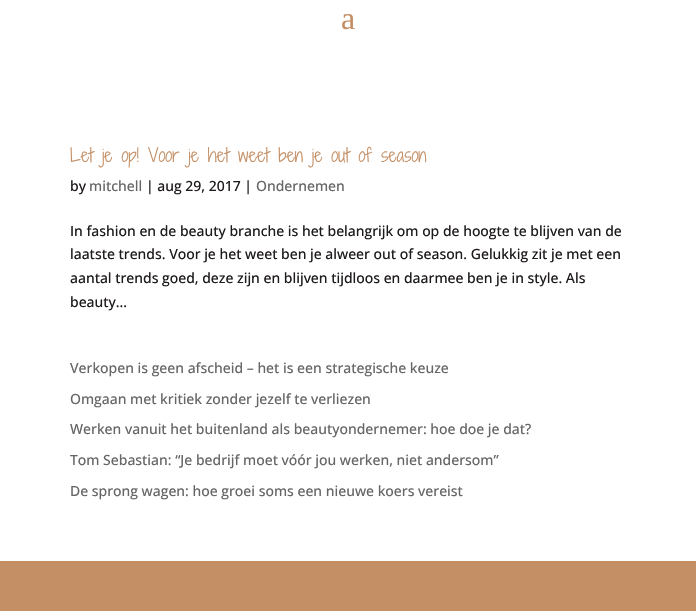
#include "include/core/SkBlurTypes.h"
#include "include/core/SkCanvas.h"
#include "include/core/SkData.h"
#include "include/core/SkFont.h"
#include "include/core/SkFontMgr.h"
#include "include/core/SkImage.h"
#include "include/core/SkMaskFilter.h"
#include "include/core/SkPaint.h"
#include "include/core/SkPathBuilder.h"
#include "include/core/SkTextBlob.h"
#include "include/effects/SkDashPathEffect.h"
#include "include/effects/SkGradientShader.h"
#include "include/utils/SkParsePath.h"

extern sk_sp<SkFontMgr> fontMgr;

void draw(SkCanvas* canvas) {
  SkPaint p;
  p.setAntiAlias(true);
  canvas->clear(SK_ColorWHITE);
  p.setColor(SkColorSetRGB(196, 143, 101));
  canvas->drawRect(SkRect::MakeLTRB(0, 561, 696, 611), p);
  SkFont font1(fontMgr->matchFamilyStyle("Liberation Serif", SkFontStyle::Normal()), 32);
  font1.setSubpixel(true);
  canvas->drawString("a", 341, 29, font1, p);
  SkFont font2(fontMgr->matchFamilyStyle("Shadows Into Light Two", SkFontStyle(300, SkFontStyle::kNormal_Width, SkFontStyle::kUpright_Slant)), 18);
  font2.setSubpixel(true);
  canvas->drawString("Let je op! Voor je het weet ben je out of season", 70, 162, font2, p);
  SkFont font3(fontMgr->matchFamilyStyle("Open Sans", SkFontStyle(500, SkFontStyle::kNormal_Width, SkFontStyle::kUpright_Slant)), 14);
  font3.setSubpixel(true);
  p.setColor(SkColorSetRGB(30, 26, 29));
  canvas->drawString("by", 70, 191, font3, p);
  p.setColor(SkColorSetRGB(102, 102, 102));
  canvas->drawString("mitchell", 89, 191, font3, p);
  p.setColor(SkColorSetRGB(30, 26, 29));
  canvas->drawString("| aug 29, 2017 |", 146, 191, font3, p);
  p.setColor(SkColorSetRGB(102, 102, 102));
  canvas->drawString("Ondernemen", 256, 191, font3, p);
  p.setColor(SkColorSetRGB(30, 26, 29));
  canvas->drawString("In fashion en de beauty branche is het belangrijk om op de hoogte te blijven van de", 70, 236, font3, p);
  canvas->drawString("laatste trends. Voor je het weet ben je alweer out of season. Gelukkig zit je met een", 70, 259, font3, p);
  canvas->drawString("aantal trends goed, deze zijn en blijven tijdloos en daarmee ben je in style. Als", 70, 283, font3, p);
  canvas->drawString("beauty...", 70, 307, font3, p);
  p.setColor(SkColorSetRGB(102, 102, 102));
  canvas->drawString("Verkopen is geen afscheid – het is een strategische keuze", 70, 373, font3, p);
  canvas->drawString("Omgaan met kritiek zonder jezelf te verliezen", 70, 404, font3, p);
  canvas->drawString("Werken vanuit het buitenland als beautyondernemer: hoe doe je dat?", 70, 434, font3, p);
  canvas->drawString("Tom Sebastian: “Je bedrijf moet vóór jou werken, niet andersom”", 70, 465, font3, p);
  canvas->drawString("De sprong wagen: hoe groei soms een nieuwe koers vereist", 70, 496, font3, p);
}
